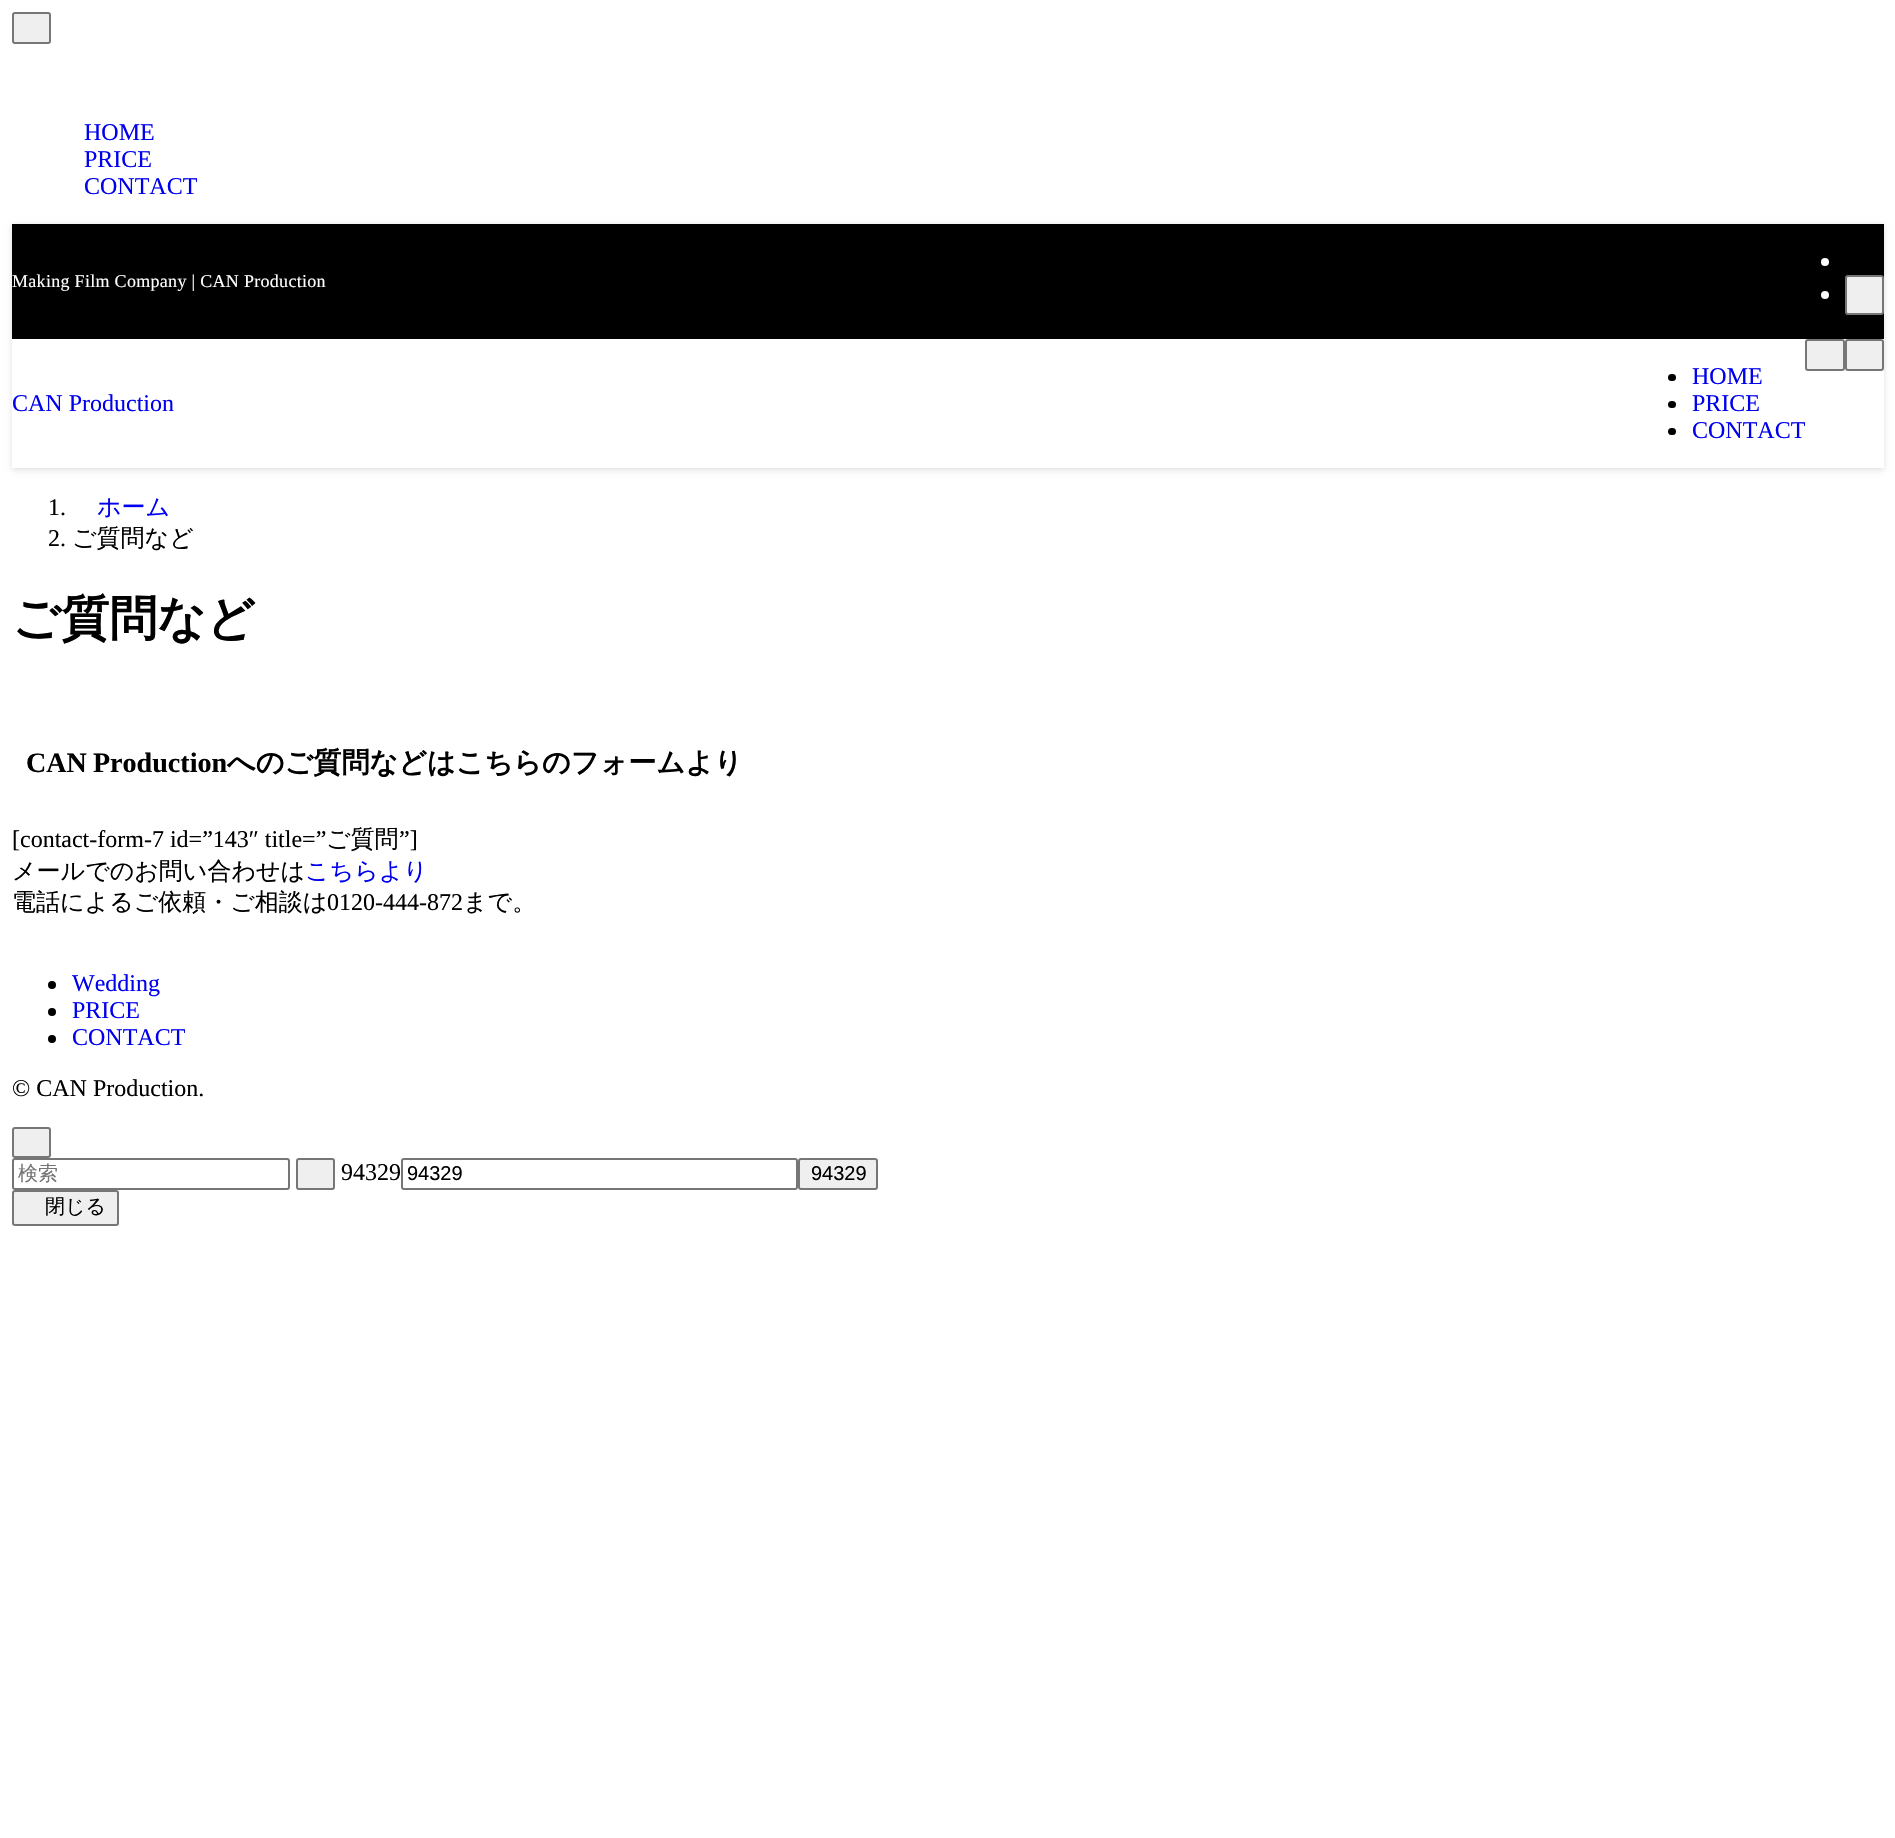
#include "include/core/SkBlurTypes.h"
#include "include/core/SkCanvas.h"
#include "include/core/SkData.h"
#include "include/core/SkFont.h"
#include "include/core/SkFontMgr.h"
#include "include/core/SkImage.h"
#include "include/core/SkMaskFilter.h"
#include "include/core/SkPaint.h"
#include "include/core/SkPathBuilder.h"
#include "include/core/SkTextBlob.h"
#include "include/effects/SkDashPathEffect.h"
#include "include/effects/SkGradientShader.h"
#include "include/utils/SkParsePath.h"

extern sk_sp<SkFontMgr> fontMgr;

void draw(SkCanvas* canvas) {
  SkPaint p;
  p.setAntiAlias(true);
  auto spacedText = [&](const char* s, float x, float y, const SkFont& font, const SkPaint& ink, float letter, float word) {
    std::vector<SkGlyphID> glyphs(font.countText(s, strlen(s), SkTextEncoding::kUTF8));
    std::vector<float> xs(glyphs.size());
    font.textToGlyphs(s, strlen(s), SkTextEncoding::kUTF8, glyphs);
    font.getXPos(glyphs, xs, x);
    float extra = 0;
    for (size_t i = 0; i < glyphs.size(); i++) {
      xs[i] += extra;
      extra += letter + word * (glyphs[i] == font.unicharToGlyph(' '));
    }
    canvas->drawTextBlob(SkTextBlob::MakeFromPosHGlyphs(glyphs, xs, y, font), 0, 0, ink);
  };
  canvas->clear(SK_ColorWHITE);
  p.setColor(SkColorSetRGB(239, 239, 239));
  canvas->drawRoundRect(SkRect::MakeLTRB(13, 13, 50, 43), 2, 2, p);
  p.setStyle(SkPaint::kStroke_Style);
  p.setStrokeWidth(2);
  p.setColor(SkColorSetRGB(118, 118, 118));
  canvas->drawRoundRect(SkRect::MakeLTRB(13, 13, 50, 43), 2, 2, p);
  canvas->save();
  canvas->clipPath(SkPathBuilder(SkPathFillType::kEvenOdd).moveTo(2, 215).lineTo(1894, 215).lineTo(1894, 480).lineTo(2, 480).close().moveTo(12, 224).lineTo(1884, 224).lineTo(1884, 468).lineTo(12, 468).close().detach(), true);
  p.setStyle(SkPaint::kFill_Style);
  p.setColor(SkColorSetARGB(31, 0, 0, 0));
  p.setMaskFilter(SkMaskFilter::MakeBlur(kNormal_SkBlurStyle, 3));
  canvas->drawRect(SkRect::MakeLTRB(12, 225, 1884, 470), p);
  p.setMaskFilter(nullptr);
  canvas->restore();
  p.setColor(SK_ColorBLACK);
  canvas->drawRect(SkRect::MakeLTRB(12, 224, 1884, 339), p);
  p.setColor(SK_ColorWHITE);
  canvas->drawCircle(1825, 262, 4, p);
  canvas->drawCircle(1825, 295, 4, p);
  p.setColor(SkColorSetRGB(239, 239, 239));
  canvas->drawRoundRect(SkRect::MakeLTRB(1846, 276, 1883, 314), 2, 2, p);
  p.setStyle(SkPaint::kStroke_Style);
  p.setColor(SkColorSetRGB(118, 118, 118));
  canvas->drawRoundRect(SkRect::MakeLTRB(1846, 276, 1883, 314), 2, 2, p);
  p.setStyle(SkPaint::kFill_Style);
  p.setColor(SkColorSetRGB(239, 239, 239));
  canvas->drawRoundRect(SkRect::MakeLTRB(1806, 340, 1844, 370), 2, 2, p);
  p.setStyle(SkPaint::kStroke_Style);
  p.setColor(SkColorSetRGB(118, 118, 118));
  canvas->drawRoundRect(SkRect::MakeLTRB(1806, 340, 1844, 370), 2, 2, p);
  p.setStyle(SkPaint::kFill_Style);
  p.setColor(SkColorSetRGB(239, 239, 239));
  canvas->drawRoundRect(SkRect::MakeLTRB(1846, 340, 1883, 370), 2, 2, p);
  p.setStyle(SkPaint::kStroke_Style);
  p.setColor(SkColorSetRGB(118, 118, 118));
  canvas->drawRoundRect(SkRect::MakeLTRB(1846, 340, 1883, 370), 2, 2, p);
  p.setStyle(SkPaint::kFill_Style);
  p.setColor(SK_ColorBLACK);
  canvas->drawRoundRect(SkRect::MakeLTRB(1668, 374, 1676, 381), 3.5f, 3.5f, p);
  canvas->drawRoundRect(SkRect::MakeLTRB(1668, 401, 1676, 408), 3.5f, 3.5f, p);
  canvas->drawRoundRect(SkRect::MakeLTRB(1668, 428, 1676, 435), 3.5f, 3.5f, p);
  canvas->drawCircle(52, 985, 4, p);
  canvas->drawCircle(52, 1012, 4, p);
  canvas->drawCircle(52, 1039, 4, p);
  p.setColor(SkColorSetRGB(239, 239, 239));
  canvas->drawRoundRect(SkRect::MakeLTRB(13, 1128, 50, 1157), 2, 2, p);
  p.setStyle(SkPaint::kStroke_Style);
  p.setColor(SkColorSetRGB(118, 118, 118));
  canvas->drawRoundRect(SkRect::MakeLTRB(13, 1128, 50, 1157), 2, 2, p);
  canvas->drawRoundRect(SkRect::MakeLTRB(13, 1159, 289, 1189), 2, 2, p);
  p.setStyle(SkPaint::kFill_Style);
  p.setColor(SkColorSetRGB(239, 239, 239));
  canvas->drawRoundRect(SkRect::MakeLTRB(297, 1159, 334, 1189), 2, 2, p);
  p.setStyle(SkPaint::kStroke_Style);
  p.setColor(SkColorSetRGB(118, 118, 118));
  canvas->drawRoundRect(SkRect::MakeLTRB(297, 1159, 334, 1189), 2, 2, p);
  canvas->drawRoundRect(SkRect::MakeLTRB(402, 1159, 797, 1189), 2, 2, p);
  p.setStyle(SkPaint::kFill_Style);
  p.setColor(SkColorSetRGB(239, 239, 239));
  canvas->drawRoundRect(SkRect::MakeLTRB(799, 1159, 877, 1189), 2, 2, p);
  p.setStyle(SkPaint::kStroke_Style);
  p.setColor(SkColorSetRGB(118, 118, 118));
  canvas->drawRoundRect(SkRect::MakeLTRB(799, 1159, 877, 1189), 2, 2, p);
  p.setStyle(SkPaint::kFill_Style);
  p.setColor(SkColorSetRGB(239, 239, 239));
  canvas->drawRoundRect(SkRect::MakeLTRB(13, 1191, 118, 1225), 2, 2, p);
  p.setStyle(SkPaint::kStroke_Style);
  p.setColor(SkColorSetRGB(118, 118, 118));
  canvas->drawRoundRect(SkRect::MakeLTRB(13, 1191, 118, 1225), 2, 2, p);
  SkFont font1(fontMgr->matchFamilyStyle("Liberation Serif", SkFontStyle::Normal()), 24);
  font1.setSubpixel(true);
  p.setStyle(SkPaint::kFill_Style);
  p.setColor(SkColorSetRGB(0, 0, 238));
  canvas->drawString("HOME", 84, 140, font1, p);
  canvas->drawString("PRICE", 84, 167, font1, p);
  canvas->drawString("CONTACT", 84, 194, font1, p);
  SkFont font2(fontMgr->matchFamilyStyle("Liberation Serif", SkFontStyle::Normal()), 18);
  font2.setSubpixel(true);
  p.setColor(SK_ColorWHITE);
  spacedText("Making Film Company | CAN Production", 12, 287, font2, p, 0.3f, 0);
  p.setColor(SkColorSetRGB(0, 0, 238));
  canvas->drawString("CAN Production", 12, 411, font1, p);
  canvas->drawString("HOME", 1692, 384, font1, p);
  canvas->drawString("PRICE", 1692, 411, font1, p);
  canvas->drawString("CONTACT", 1692, 438, font1, p);
  p.setColor(SK_ColorBLACK);
  canvas->drawString("1.", 48, 515, font1, p);
  SkFont font3(fontMgr->matchFamilyStyle("WenQuanYi Zen Hei", SkFontStyle(500, SkFontStyle::kNormal_Width, SkFontStyle::kUpright_Slant)), 24);
  font3.setSubpixel(true);
  p.setColor(SkColorSetRGB(0, 0, 238));
  canvas->drawString("ホーム", 97, 515, font3, p);
  p.setColor(SK_ColorBLACK);
  canvas->drawString("2.", 48, 546, font1, p);
  canvas->drawString("ご質問など", 72, 546, font3, p);
  SkFont font4(fontMgr->matchFamilyStyle("WenQuanYi Zen Hei", SkFontStyle::Bold()), 48);
  font4.setSubpixel(true);
  canvas->drawString("ご質問など", 12, 635, font4, p);
  SkFont font5(fontMgr->matchFamilyStyle("Liberation Serif", SkFontStyle::Bold()), 28.1f);
  font5.setSubpixel(true);
  spacedText("CAN Production", 26, 772, font5, p, 0, -1);
  SkFont font6(fontMgr->matchFamilyStyle("WenQuanYi Zen Hei", SkFontStyle::Bold()), 28.1f);
  font6.setSubpixel(true);
  canvas->drawString("へのご質問などはこちらのフォームより", 227, 772, font6, p);
  canvas->drawString("[contact-form-7 id=”143″ title=”", 12, 847, font1, p);
  canvas->drawString("ご質問", 326, 847, font3, p);
  canvas->drawString("”]", 399, 847, font1, p);
  canvas->drawString("メールでのお問い合わせは", 12, 879, font3, p);
  p.setColor(SkColorSetRGB(0, 0, 238));
  canvas->drawString("こちらより", 305, 879, font3, p);
  p.setColor(SK_ColorBLACK);
  canvas->drawString("電話によるご依頼・ご相談は", 12, 910, font3, p);
  canvas->drawString("0120-444-872", 327, 910, font1, p);
  canvas->drawString("まで。", 463, 910, font3, p);
  p.setColor(SkColorSetRGB(0, 0, 238));
  canvas->drawString("Wedding", 72, 991, font1, p);
  canvas->drawString("PRICE", 72, 1018, font1, p);
  canvas->drawString("CONTACT", 72, 1045, font1, p);
  p.setColor(SK_ColorBLACK);
  canvas->drawString("© CAN Production.", 12, 1096, font1, p);
  SkFont font7(fontMgr->matchFamilyStyle("WenQuanYi Zen Hei", SkFontStyle(500, SkFontStyle::kNormal_Width, SkFontStyle::kUpright_Slant)), 20);
  font7.setSubpixel(true);
  p.setColor(SkColorSetRGB(117, 117, 117));
  canvas->drawString("検索", 18, 1180, font7, p);
  p.setColor(SK_ColorBLACK);
  canvas->drawString("94329", 341, 1180, font1, p);
  SkFont font8(fontMgr->matchFamilyStyle("Liberation Sans", SkFontStyle::Normal()), 20);
  font8.setSubpixel(true);
  canvas->drawString("94329", 407, 1180, font8, p);
  canvas->drawString("94329", 811, 1180, font8, p);
  canvas->drawString("閉じる", 45, 1213, font7, p);
}
